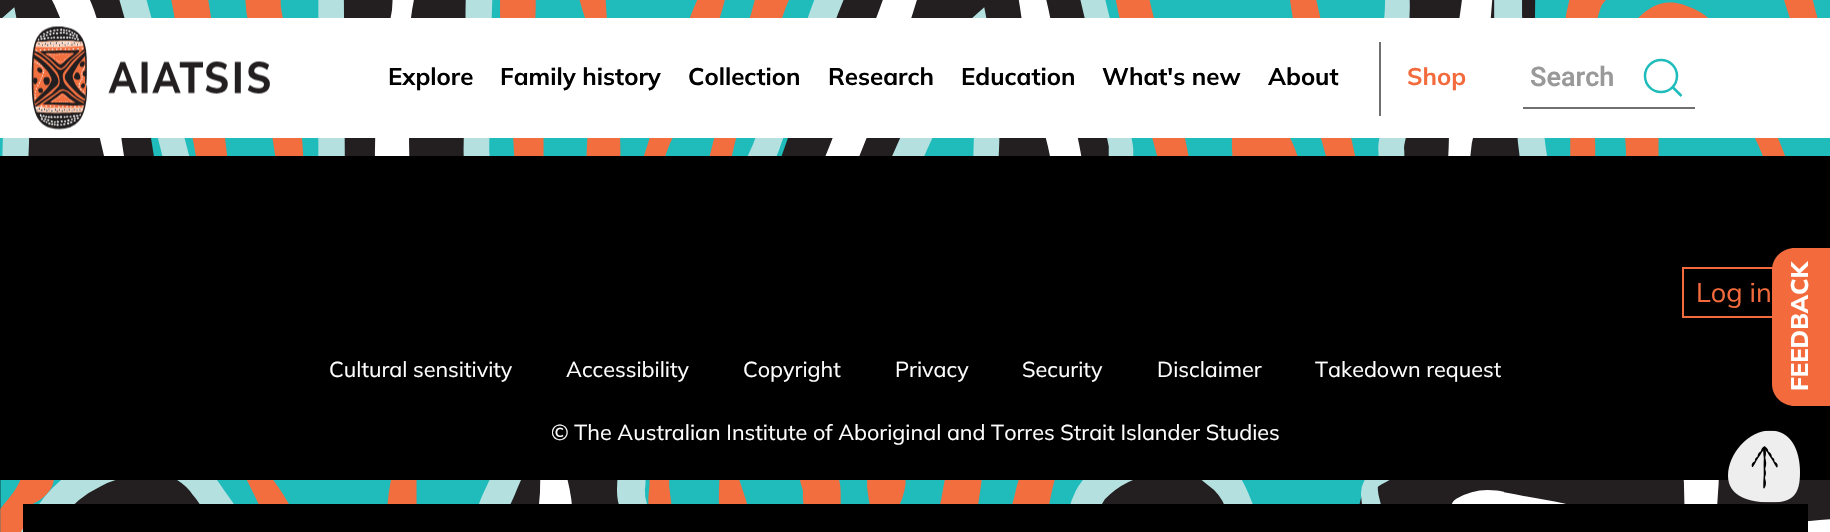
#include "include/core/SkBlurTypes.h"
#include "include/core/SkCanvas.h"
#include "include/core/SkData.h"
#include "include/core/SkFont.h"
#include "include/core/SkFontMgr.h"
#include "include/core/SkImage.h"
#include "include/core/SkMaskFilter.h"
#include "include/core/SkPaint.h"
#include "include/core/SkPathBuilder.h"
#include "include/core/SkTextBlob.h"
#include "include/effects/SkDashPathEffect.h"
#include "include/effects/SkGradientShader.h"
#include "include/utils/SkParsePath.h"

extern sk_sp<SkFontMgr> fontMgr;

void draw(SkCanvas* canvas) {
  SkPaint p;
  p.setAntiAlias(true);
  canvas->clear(SK_ColorBLACK);
  canvas->drawImageRect(SkImages::DeferredFromEncodedData(SkData::MakeFromFileName("images/1.png")), SkRect::MakeLTRB(0, 0, 1830, 156), SkSamplingOptions());
  p.setColor(SK_ColorWHITE);
  canvas->drawRect(SkRect::MakeLTRB(0, 18, 1830, 138), p);
  canvas->drawImageRect(SkImages::DeferredFromEncodedData(SkData::MakeFromFileName("images/2.png")), SkRect::MakeLTRB(31, 26, 270, 130), SkSamplingOptions());
  p.setColor(SkColorSetRGB(112, 112, 112));
  canvas->drawRect(SkRect::MakeLTRB(1379, 42, 1381, 116), p);
  canvas->drawRect(SkRect::MakeLTRB(1523, 107, 1695, 109), p);
  p.setStyle(SkPaint::kStroke_Style);
  p.setStrokeWidth(2.5f);
  p.setColor(SkColorSetRGB(31, 188, 188));
  canvas->drawCircle(1661, 76, 16, p);
  canvas->drawPath(SkPathBuilder().moveTo(1672.5f, 87).lineTo(1681.5f, 96).close().detach(), p);
  p.setStrokeWidth(2);
  p.setColor(SkColorSetRGB(243, 107, 60));
  canvas->drawRect(SkRect::MakeLTRB(1683, 268, 1786, 317), p);
  p.setStyle(SkPaint::kFill_Style);
  canvas->drawPath(SkPathBuilder().moveTo(1772, 384).lineTo(1772, 270).cubicTo(1772, 258, 1782, 248, 1795, 248).lineTo(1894, 248).lineTo(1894, 406).lineTo(1795, 406).cubicTo(1782, 406, 1772, 396, 1772, 384).close().detach(), p);
  canvas->drawImageRect(SkImages::DeferredFromEncodedData(SkData::MakeFromFileName("images/3.png")), SkRect::MakeLTRB(0, 480, 1830, 532), SkSamplingOptions());
  p.setColor(SK_ColorBLACK);
  canvas->drawRect(SkRect::MakeLTRB(23, 504, 1808, 532), p);
  canvas->drawImageRect(SkImages::DeferredFromEncodedData(SkData::MakeFromFileName("images/4.png")), SkRect::MakeLTRB(1728, 430, 1800, 503), SkSamplingOptions());
  SkFont font1(fontMgr->matchFamilyStyle("Mulish", SkFontStyle::Bold()), 24);
  font1.setSubpixel(true);
  canvas->drawString("Explore", 388, 85, font1, p);
  canvas->drawString("Family history", 500, 85, font1, p);
  canvas->drawString("Collection", 688, 85, font1, p);
  canvas->drawString("Research", 828, 85, font1, p);
  canvas->drawString("Education", 961, 85, font1, p);
  canvas->drawString("What's new", 1102, 85, font1, p);
  canvas->drawString("About", 1268, 85, font1, p);
  p.setColor(SkColorSetRGB(243, 107, 60));
  canvas->drawString("Shop", 1407, 85, font1, p);
  SkFont font2(fontMgr->matchFamilyStyle("Roboto", SkFontStyle(600, SkFontStyle::kNormal_Width, SkFontStyle::kUpright_Slant)), 27);
  font2.setSubpixel(true);
  p.setColor(SkColorSetRGB(153, 153, 153));
  canvas->drawString("Search", 1530, 86, font2, p);
  SkFont font3(fontMgr->matchFamilyStyle("Mulish", SkFontStyle::Normal()), 27);
  font3.setSubpixel(true);
  p.setColor(SkColorSetRGB(243, 107, 60));
  canvas->drawString("Log in", 1696, 302, font3, p);
  SkFont font4(fontMgr->matchFamilyStyle("Mulish", SkFontStyle(800, SkFontStyle::kNormal_Width, SkFontStyle::kUpright_Slant)), 24);
  font4.setSubpixel(true);
  p.setColor(SK_ColorWHITE);
  canvas->save();
  canvas->rotate(-90, 1808, 391);
  canvas->drawString("FEEDBACK", 1808, 391, font4, p);
  canvas->restore();
  SkFont font5(fontMgr->matchFamilyStyle("Mulish", SkFontStyle::Normal()), 21.6f);
  font5.setSubpixel(true);
  canvas->drawString("Cultural sensitivity", 329, 377, font5, p);
  canvas->drawString("Accessibility", 566, 377, font5, p);
  canvas->drawString("Copyright", 743, 377, font5, p);
  canvas->drawString("Privacy", 895, 377, font5, p);
  canvas->drawString("Security", 1022, 377, font5, p);
  canvas->drawString("Disclaimer", 1157, 377, font5, p);
  canvas->drawString("Takedown request", 1315, 377, font5, p);
  canvas->drawString("© The Australian Institute of Aboriginal and Torres Strait Islander Studies", 551, 440, font5, p);
}
